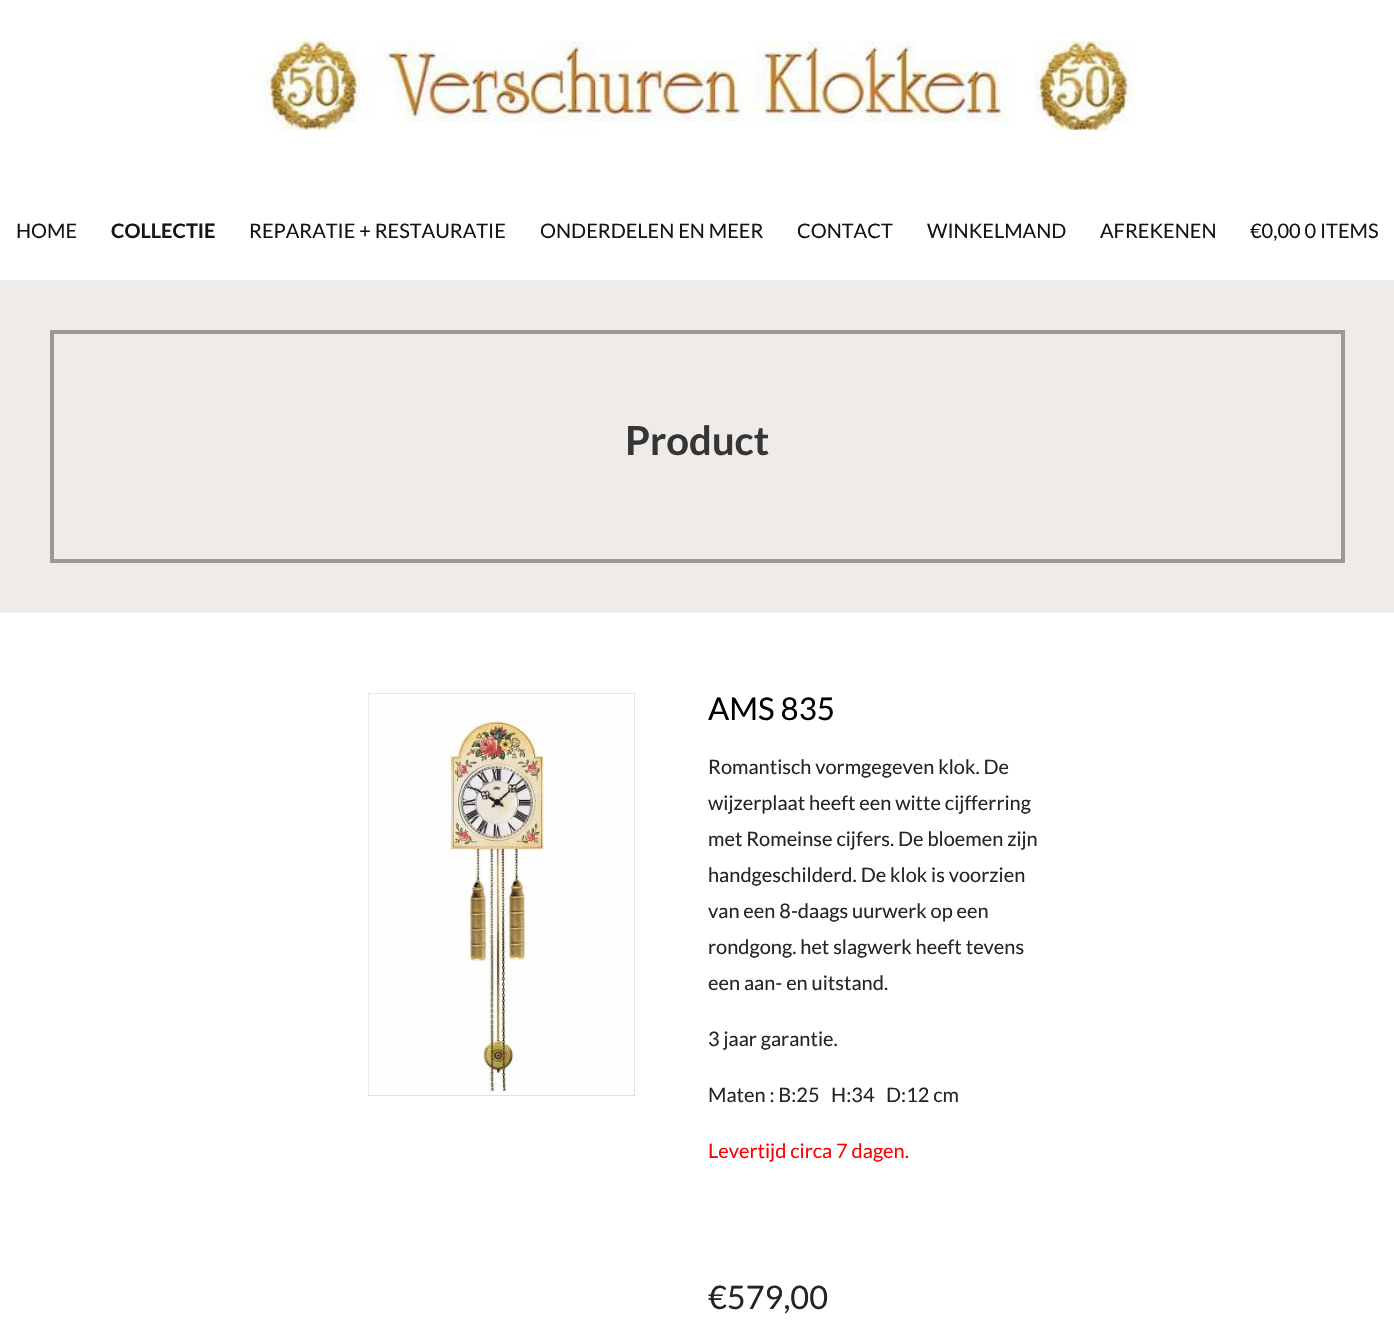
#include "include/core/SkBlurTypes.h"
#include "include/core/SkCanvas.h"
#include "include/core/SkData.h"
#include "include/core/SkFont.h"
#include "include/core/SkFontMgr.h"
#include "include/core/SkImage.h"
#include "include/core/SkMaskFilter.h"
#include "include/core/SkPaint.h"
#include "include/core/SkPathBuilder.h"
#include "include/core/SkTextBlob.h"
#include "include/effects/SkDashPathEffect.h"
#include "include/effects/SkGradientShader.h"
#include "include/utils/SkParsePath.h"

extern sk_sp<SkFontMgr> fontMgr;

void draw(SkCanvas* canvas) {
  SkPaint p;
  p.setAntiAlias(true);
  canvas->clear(SK_ColorWHITE);
  canvas->drawImageRect(SkImages::DeferredFromEncodedData(SkData::MakeFromFileName("images/1.png")), SkRect::MakeLTRB(255, 41, 1135, 130), SkSamplingOptions());
  p.setColor(SkColorSetRGB(238, 235, 232));
  canvas->drawRect(SkRect::MakeLTRB(0, 280, 1394, 613), p);
  p.setStyle(SkPaint::kStroke_Style);
  p.setStrokeWidth(4);
  p.setColor(SkColorSetRGB(156, 152, 150));
  canvas->drawRect(SkRect::MakeLTRB(52, 332, 1343, 561), p);
  p.setStrokeWidth(1);
  p.setColor(SkColorSetRGB(224, 224, 224));
  canvas->drawRect(SkRect::MakeLTRB(368.5f, 693.5f, 634.5f, 1095.5f), p);
  canvas->drawImageRect(SkImages::DeferredFromEncodedData(SkData::MakeFromFileName("images/2.png")), SkRect::MakeLTRB(368, 693, 634, 1092), SkSamplingOptions());
  SkFont font1(fontMgr->matchFamilyStyle("Lato", SkFontStyle::Normal()), 20);
  font1.setSubpixel(true);
  p.setStyle(SkPaint::kFill_Style);
  p.setColor(SkColorSetRGB(22, 21, 20));
  canvas->drawString("HOME", 16, 238, font1, p);
  SkFont font2(fontMgr->matchFamilyStyle("Lato", SkFontStyle::Bold()), 20);
  font2.setSubpixel(true);
  canvas->drawString("COLLECTIE", 111, 238, font2, p);
  canvas->drawString("REPARATIE + RESTAURATIE", 249, 238, font1, p);
  canvas->drawString("ONDERDELEN EN MEER", 540, 238, font1, p);
  canvas->drawString("CONTACT", 797, 238, font1, p);
  canvas->drawString("WINKELMAND", 927, 238, font1, p);
  canvas->drawString("AFREKENEN", 1100, 238, font1, p);
  canvas->drawString("€0,00 0 ITEMS", 1250, 238, font1, p);
  SkFont font3(fontMgr->matchFamilyStyle("Lato", SkFontStyle::Bold()), 40);
  font3.setSubpixel(true);
  p.setColor(SkColorSetRGB(53, 53, 53));
  canvas->drawString("Product", 625, 455, font3, p);
  SkFont font4(fontMgr->matchFamilyStyle("Lato", SkFontStyle::Normal()), 31.25f);
  font4.setSubpixel(true);
  p.setColor(SK_ColorBLACK);
  canvas->drawString("AMS 835", 708, 720, font4, p);
  p.setColor(SkColorSetRGB(37, 37, 37));
  canvas->drawString("Romantisch vormgegeven klok. De", 708, 774, font1, p);
  canvas->drawString("wijzerplaat heeft een witte cijfferring", 708, 810, font1, p);
  canvas->drawString("met Romeinse cijfers. De bloemen zijn", 708, 846, font1, p);
  canvas->drawString("handgeschilderd. De klok is voorzien", 708, 882, font1, p);
  canvas->drawString("van een 8-daags uurwerk op een", 708, 918, font1, p);
  canvas->drawString("rondgong. het slagwerk heeft tevens", 708, 954, font1, p);
  canvas->drawString("een aan- en uitstand.", 708, 990, font1, p);
  canvas->drawString("3 jaar garantie.", 708, 1046, font1, p);
  canvas->drawString("Maten : B:25   H:34   D:12 cm", 708, 1102, font1, p);
  p.setColor(SkColorSetRGB(255, 0, 0));
  canvas->drawString("Levertijd circa 7 dagen.", 708, 1158, font1, p);
  SkFont font5(fontMgr->matchFamilyStyle("Lato", SkFontStyle::Normal()), 32.5f);
  font5.setSubpixel(true);
  p.setColor(SkColorSetRGB(37, 37, 37));
  canvas->drawString("€579,00", 708, 1309, font5, p);
}
